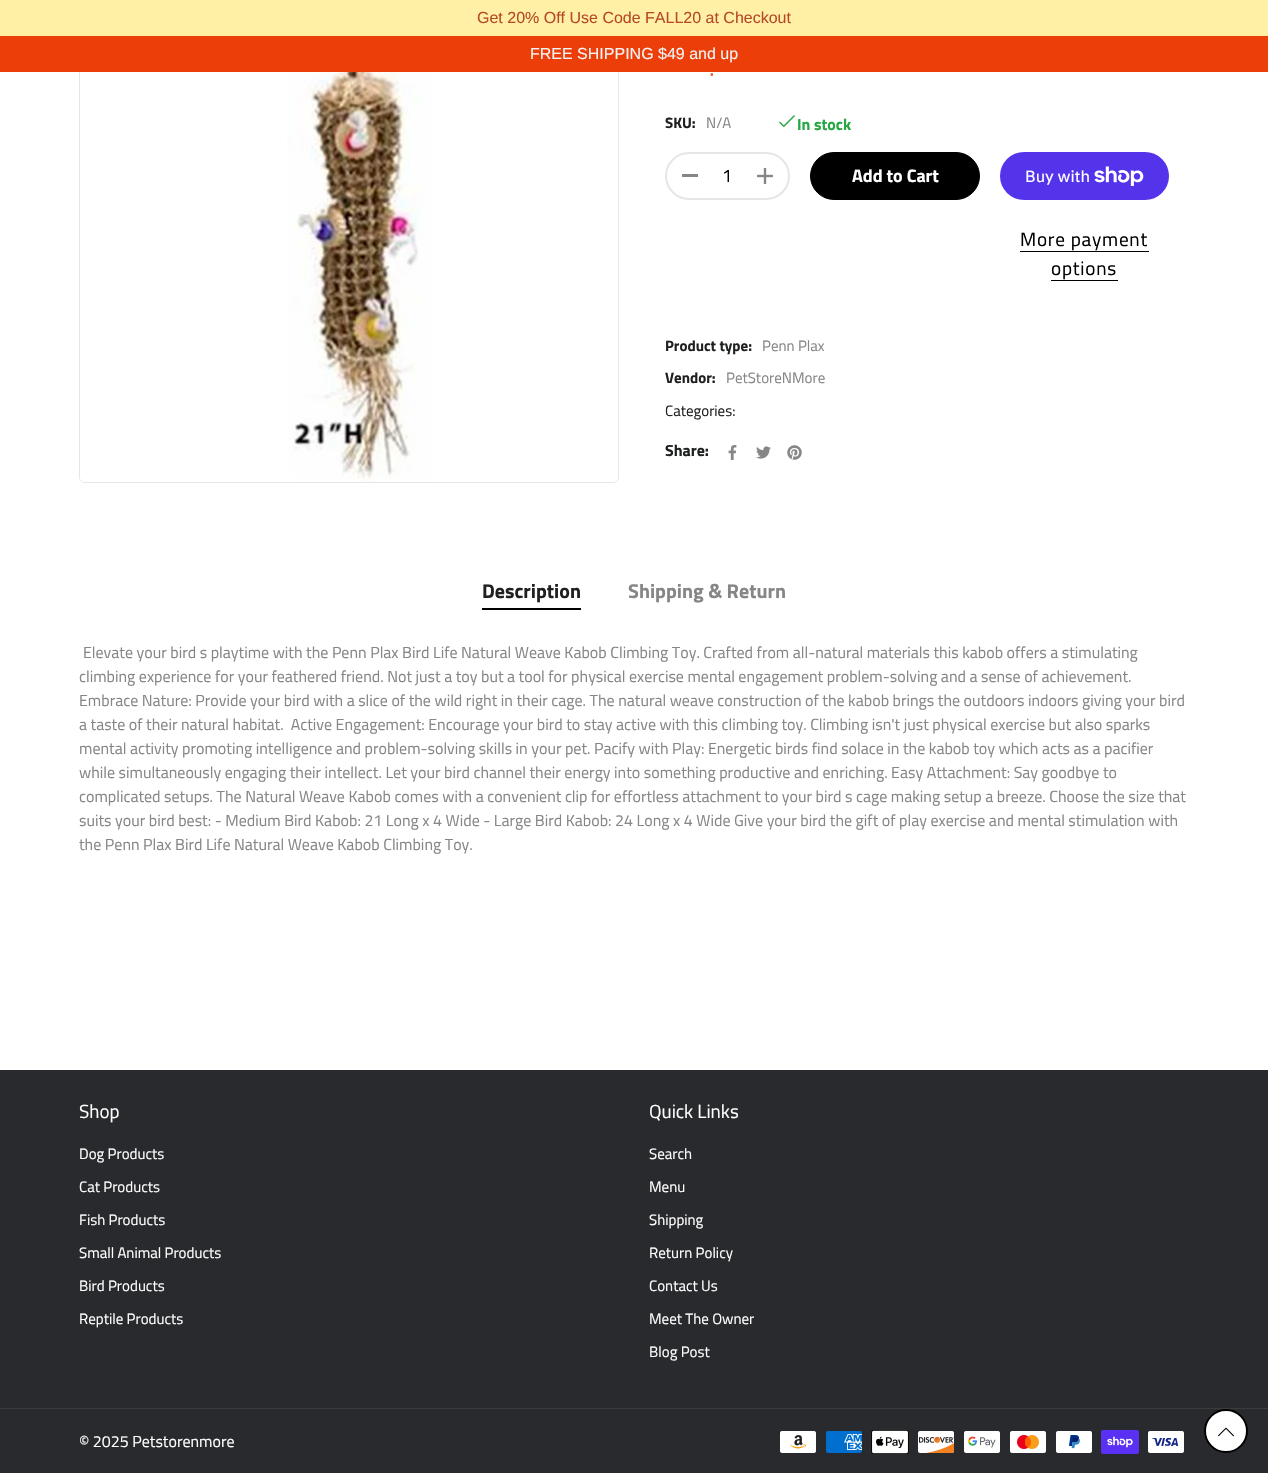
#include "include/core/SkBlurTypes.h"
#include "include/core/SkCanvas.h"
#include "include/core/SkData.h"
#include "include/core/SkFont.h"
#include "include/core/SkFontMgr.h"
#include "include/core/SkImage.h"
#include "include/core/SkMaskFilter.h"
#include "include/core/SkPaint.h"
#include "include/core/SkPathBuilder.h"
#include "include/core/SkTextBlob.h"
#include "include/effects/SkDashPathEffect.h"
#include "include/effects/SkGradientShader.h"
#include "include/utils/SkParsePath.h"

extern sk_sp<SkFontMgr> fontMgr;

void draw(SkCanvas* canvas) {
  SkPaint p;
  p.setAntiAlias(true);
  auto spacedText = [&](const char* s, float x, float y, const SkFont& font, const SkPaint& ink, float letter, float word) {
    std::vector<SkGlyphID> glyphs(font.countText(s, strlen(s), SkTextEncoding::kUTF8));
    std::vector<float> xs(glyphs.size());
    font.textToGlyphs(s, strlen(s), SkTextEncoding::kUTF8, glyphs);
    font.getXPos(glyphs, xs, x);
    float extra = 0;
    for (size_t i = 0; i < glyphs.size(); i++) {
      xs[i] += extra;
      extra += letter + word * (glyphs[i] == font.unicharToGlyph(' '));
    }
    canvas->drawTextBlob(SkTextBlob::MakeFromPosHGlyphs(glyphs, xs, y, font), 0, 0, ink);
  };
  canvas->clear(SK_ColorWHITE);
  p.setStyle(SkPaint::kStroke_Style);
  p.setStrokeWidth(1);
  p.setColor(SkColorSetRGB(230, 230, 230));
  canvas->drawRoundRect(SkRect::MakeLTRB(79.5f, -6.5f, 618.5f, 482.5f), 5.5f, 5.5f, p);
  p.setStyle(SkPaint::kFill_Style);
  p.setColor(SkColorSetRGB(255, 240, 165));
  canvas->drawRect(SkRect::MakeLTRB(0, 0, 1268, 36), p);
  p.setColor(SkColorSetRGB(236, 62, 9));
  canvas->drawRect(SkRect::MakeLTRB(0, 36, 1268, 72), p);
  canvas->drawImageRect(SkImages::DeferredFromEncodedData(SkData::MakeFromFileName("images/1.png")), SkRect::MakeLTRB(80, 72, 618, 482), SkSamplingOptions());
  canvas->drawImageRect(SkImages::DeferredFromEncodedData(SkData::MakeFromFileName("images/2.png")), SkRect::MakeLTRB(779, 115, 795, 128), SkSamplingOptions());
  p.setStyle(SkPaint::kStroke_Style);
  p.setStrokeWidth(2);
  p.setColor(SkColorSetRGB(230, 230, 230));
  canvas->drawRoundRect(SkRect::MakeLTRB(666, 153, 789, 199), 23, 23, p);
  p.setStyle(SkPaint::kFill_Style);
  p.setColor(SkColorSetRGB(134, 134, 134));
  canvas->drawRect(SkRect::MakeLTRB(682, 174, 698, 177), p);
  canvas->drawImageRect(SkImages::DeferredFromEncodedData(SkData::MakeFromFileName("images/3.png")), SkRect::MakeLTRB(757, 168, 773, 184), SkSamplingOptions());
  p.setColor(SK_ColorBLACK);
  canvas->drawRoundRect(SkRect::MakeLTRB(810.5f, 152.5f, 979.5f, 199.5f), 23.5f, 23.5f, p);
  p.setStyle(SkPaint::kStroke_Style);
  p.setStrokeWidth(1);
  canvas->drawRoundRect(SkRect::MakeLTRB(810.5f, 152.5f, 979.5f, 199.5f), 23.5f, 23.5f, p);
  p.setStyle(SkPaint::kFill_Style);
  p.setColor(SkColorSetRGB(84, 51, 235));
  canvas->drawRoundRect(SkRect::MakeLTRB(1000, 152, 1169, 200), 24, 24, p);
  canvas->drawImageRect(SkImages::DeferredFromEncodedData(SkData::MakeFromFileName("images/4.png")), SkRect::MakeLTRB(1094, 166, 1144, 186), SkSamplingOptions());
  p.setColor(SK_ColorBLACK);
  canvas->drawRect(SkRect::MakeLTRB(1020, 251, 1149, 252), p);
  canvas->drawRect(SkRect::MakeLTRB(1051, 280, 1118, 281), p);
  canvas->drawImageRect(SkImages::DeferredFromEncodedData(SkData::MakeFromFileName("images/5.png")), SkRect::MakeLTRB(728, 445, 737, 460), SkSamplingOptions());
  canvas->drawImageRect(SkImages::DeferredFromEncodedData(SkData::MakeFromFileName("images/6.png")), SkRect::MakeLTRB(756, 446, 771, 459), SkSamplingOptions());
  canvas->drawImageRect(SkImages::DeferredFromEncodedData(SkData::MakeFromFileName("images/7.png")), SkRect::MakeLTRB(787, 445, 802, 460), SkSamplingOptions());
  canvas->drawRect(SkRect::MakeLTRB(482, 608, 581, 610), p);
  p.setColor(SkColorSetRGB(41, 42, 45));
  canvas->drawRect(SkRect::MakeLTRB(0, 1070, 1268, 1473), p);
  p.setColor(SkColorSetRGB(59, 60, 62));
  canvas->drawRect(SkRect::MakeLTRB(0, 1408, 1268, 1409), p);
  canvas->drawImageRect(SkImages::DeferredFromEncodedData(SkData::MakeFromFileName("images/8.png")), SkRect::MakeLTRB(780, 1431, 816, 1453), SkSamplingOptions());
  canvas->drawImageRect(SkImages::DeferredFromEncodedData(SkData::MakeFromFileName("images/9.png")), SkRect::MakeLTRB(826, 1431, 862, 1453), SkSamplingOptions());
  canvas->drawImageRect(SkImages::DeferredFromEncodedData(SkData::MakeFromFileName("images/10.png")), SkRect::MakeLTRB(871, 1430, 909, 1454), SkSamplingOptions());
  canvas->drawImageRect(SkImages::DeferredFromEncodedData(SkData::MakeFromFileName("images/11.png")), SkRect::MakeLTRB(918, 1431, 954, 1453), SkSamplingOptions());
  canvas->drawImageRect(SkImages::DeferredFromEncodedData(SkData::MakeFromFileName("images/12.png")), SkRect::MakeLTRB(964, 1431, 1000, 1453), SkSamplingOptions());
  canvas->drawImageRect(SkImages::DeferredFromEncodedData(SkData::MakeFromFileName("images/13.png")), SkRect::MakeLTRB(1010, 1431, 1046, 1453), SkSamplingOptions());
  canvas->drawImageRect(SkImages::DeferredFromEncodedData(SkData::MakeFromFileName("images/14.png")), SkRect::MakeLTRB(1056, 1431, 1092, 1453), SkSamplingOptions());
  canvas->drawImageRect(SkImages::DeferredFromEncodedData(SkData::MakeFromFileName("images/15.png")), SkRect::MakeLTRB(1101, 1430, 1139, 1454), SkSamplingOptions());
  canvas->drawImageRect(SkImages::DeferredFromEncodedData(SkData::MakeFromFileName("images/16.png")), SkRect::MakeLTRB(1148, 1431, 1184, 1453), SkSamplingOptions());
  p.setColor(SK_ColorWHITE);
  canvas->drawCircle(1226, 1431, 21, p);
  p.setStyle(SkPaint::kStroke_Style);
  p.setStrokeWidth(2);
  p.setColor(SK_ColorBLACK);
  canvas->drawCircle(1226, 1431, 21, p);
  canvas->drawImageRect(SkImages::DeferredFromEncodedData(SkData::MakeFromFileName("images/17.png")), SkRect::MakeLTRB(1218, 1427, 1234, 1437), SkSamplingOptions());
  SkFont font1(fontMgr->matchFamilyStyle("Liberation Sans", SkFontStyle::Normal()), 16);
  font1.setSubpixel(true);
  p.setStyle(SkPaint::kFill_Style);
  p.setColor(SkColorSetRGB(182, 73, 38));
  canvas->drawString("Get 20% Off Use Code FALL20 at Checkout", 477, 23, font1, p);
  p.setColor(SkColorSetRGB(243, 243, 243));
  canvas->drawString("FREE SHIPPING $49 and up", 530, 59, font1, p);
  SkFont font2(fontMgr->matchFamilyStyle("Titillium Web", SkFontStyle::Normal()), 26);
  font2.setSubpixel(true);
  p.setColor(SkColorSetRGB(237, 100, 54));
  canvas->drawString(".", 709, 76, font2, p);
  SkFont font3(fontMgr->matchFamilyStyle("Titillium Web", SkFontStyle::Bold()), 15);
  font3.setSubpixel(true);
  p.setColor(SkColorSetRGB(31, 32, 33));
  canvas->drawString("SKU:", 665, 128, font3, p);
  SkFont font4(fontMgr->matchFamilyStyle("Titillium Web", SkFontStyle::Normal()), 15);
  font4.setSubpixel(true);
  p.setColor(SkColorSetRGB(134, 134, 134));
  canvas->drawString("N/A", 706, 128, font4, p);
  SkFont font5(fontMgr->matchFamilyStyle("Titillium Web", SkFontStyle::Bold()), 16);
  font5.setSubpixel(true);
  p.setColor(SkColorSetRGB(40, 167, 69));
  canvas->drawString("In stock", 797, 130, font5, p);
  SkFont font6(fontMgr->matchFamilyStyle("Titillium Web", SkFontStyle::Normal()), 18);
  font6.setSubpixel(true);
  p.setColor(SK_ColorBLACK);
  canvas->drawString("1", 722, 182, font6, p);
  SkFont font7(fontMgr->matchFamilyStyle("Titillium Web", SkFontStyle::Bold()), 18);
  font7.setSubpixel(true);
  p.setColor(SK_ColorWHITE);
  canvas->drawString("Add to Cart", 852, 182, font7, p);
  SkFont font8(fontMgr->matchFamilyStyle("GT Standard", SkFontStyle::Normal()), 16);
  font8.setSubpixel(true);
  canvas->drawString("Buy with", 1025, 182, font8, p);
  SkFont font9(fontMgr->matchFamilyStyle("Titillium Web", SkFontStyle::Normal()), 19.25f);
  font9.setSubpixel(true);
  p.setColor(SK_ColorBLACK);
  spacedText("More payment", 1020, 246, font9, p, 0.75f, 0);
  spacedText("options", 1051, 275, font9, p, 0.75f, 0);
  p.setColor(SkColorSetRGB(31, 32, 33));
  canvas->drawString("Product type:", 665, 351, font3, p);
  p.setColor(SkColorSetRGB(134, 134, 134));
  canvas->drawString("Penn Plax", 762, 351, font4, p);
  p.setColor(SkColorSetRGB(31, 32, 33));
  canvas->drawString("Vendor:", 665, 383, font3, p);
  p.setColor(SkColorSetRGB(134, 134, 134));
  canvas->drawString("PetStoreNMore", 726, 383, font4, p);
  p.setColor(SkColorSetRGB(31, 32, 33));
  canvas->drawString("Categories:", 665, 416, font4, p);
  canvas->drawString("Share:", 665, 456, font5, p);
  SkFont font10(fontMgr->matchFamilyStyle("Titillium Web", SkFontStyle::Bold()), 20);
  font10.setSubpixel(true);
  canvas->drawString("Description", 482, 598, font10, p);
  p.setColor(SkColorSetRGB(134, 134, 134));
  canvas->drawString("Shipping & Return", 628, 598, font10, p);
  SkFont font11(fontMgr->matchFamilyStyle("Titillium Web", SkFontStyle::Normal()), 16);
  font11.setSubpixel(true);
  canvas->drawString("Elevate your bird s playtime with the Penn Plax Bird Life Natural Weave Kabob Climbing Toy. Crafted from all-natural materials this kabob offers a stimulating", 83, 658, font11, p);
  canvas->drawString("climbing experience for your feathered friend. Not just a toy but a tool for physical exercise mental engagement problem-solving and a sense of achievement.", 79, 682, font11, p);
  canvas->drawString("Embrace Nature: Provide your bird with a slice of the wild right in their cage. The natural weave construction of the kabob brings the outdoors indoors giving your bird", 79, 706, font11, p);
  canvas->drawString("a taste of their natural habitat.  Active Engagement: Encourage your bird to stay active with this climbing toy. Climbing isn't just physical exercise but also sparks", 79, 730, font11, p);
  canvas->drawString("mental activity promoting intelligence and problem-solving skills in your pet. Pacify with Play: Energetic birds find solace in the kabob toy which acts as a pacifier", 79, 754, font11, p);
  canvas->drawString("while simultaneously engaging their intellect. Let your bird channel their energy into something productive and enriching. Easy Attachment: Say goodbye to", 79, 778, font11, p);
  canvas->drawString("complicated setups. The Natural Weave Kabob comes with a convenient clip for effortless attachment to your bird s cage making setup a breeze. Choose the size that", 79, 802, font11, p);
  canvas->drawString("suits your bird best: - Medium Bird Kabob: 21 Long x 4 Wide - Large Bird Kabob: 24 Long x 4 Wide Give your bird the gift of play exercise and mental stimulation with", 79, 826, font11, p);
  canvas->drawString("the Penn Plax Bird Life Natural Weave Kabob Climbing Toy.", 79, 850, font11, p);
  SkFont font12(fontMgr->matchFamilyStyle("Titillium Web", SkFontStyle::Normal()), 19);
  font12.setSubpixel(true);
  p.setColor(SK_ColorWHITE);
  canvas->drawString("Shop", 79, 1118, font12, p);
  canvas->drawString("Dog Products", 79, 1159, font4, p);
  canvas->drawString("Cat Products", 79, 1192, font4, p);
  canvas->drawString("Fish Products", 79, 1225, font4, p);
  canvas->drawString("Small Animal Products", 79, 1258, font4, p);
  canvas->drawString("Bird Products", 79, 1291, font4, p);
  canvas->drawString("Reptile Products", 79, 1324, font4, p);
  canvas->drawString("Quick Links", 649, 1118, font12, p);
  canvas->drawString("Search", 649, 1159, font4, p);
  canvas->drawString("Menu", 649, 1192, font4, p);
  canvas->drawString("Shipping", 649, 1225, font4, p);
  canvas->drawString("Return Policy", 649, 1258, font4, p);
  canvas->drawString("Contact Us", 649, 1291, font4, p);
  canvas->drawString("Meet The Owner", 649, 1324, font4, p);
  canvas->drawString("Blog Post", 649, 1357, font4, p);
  canvas->drawString("© 2025 Petstorenmore", 79, 1447, font11, p);
}
